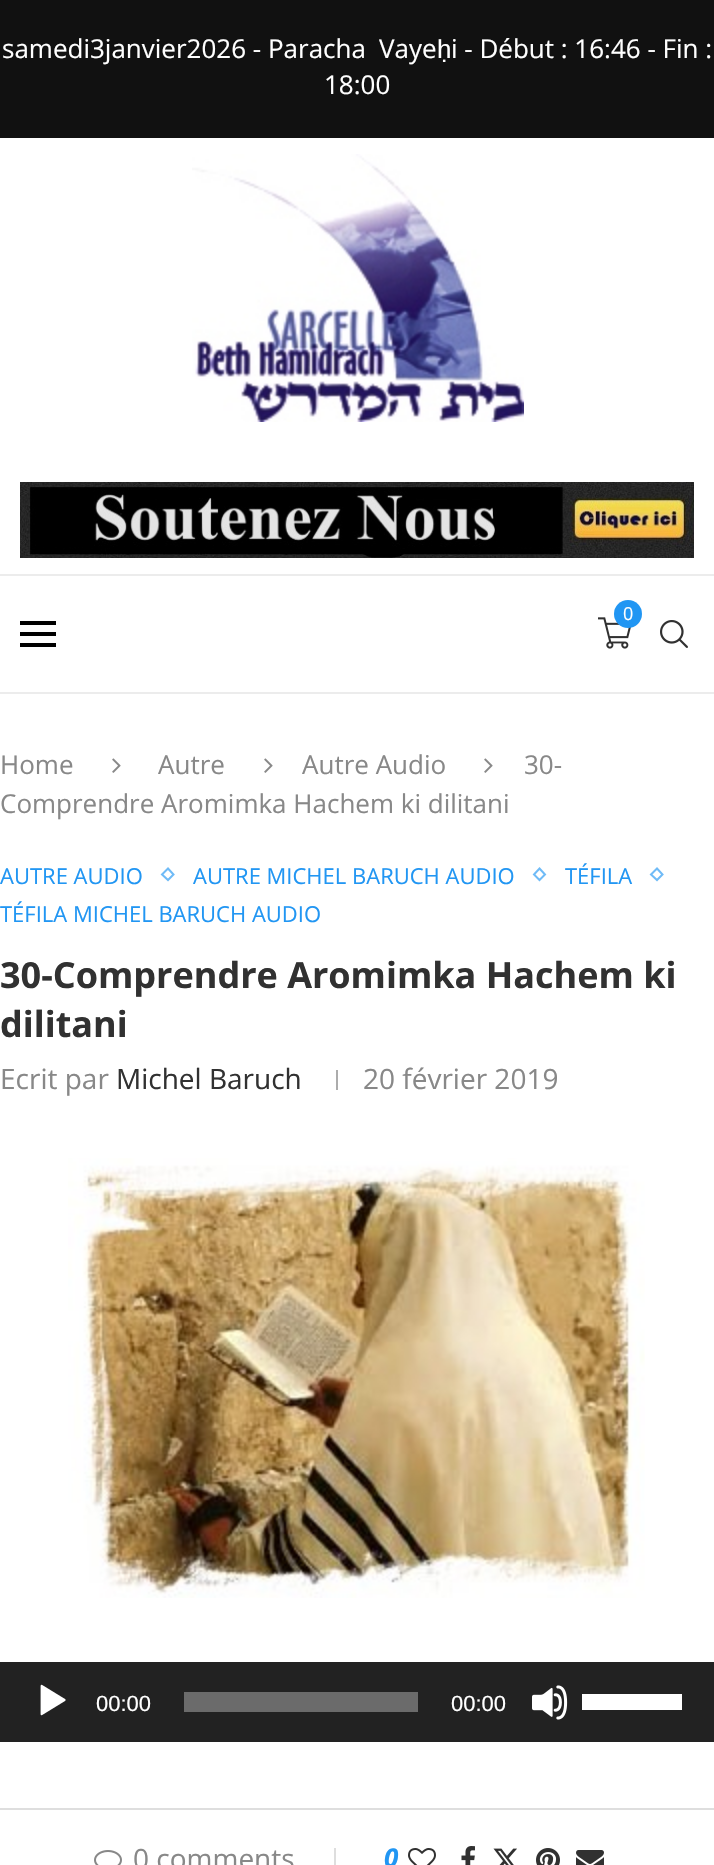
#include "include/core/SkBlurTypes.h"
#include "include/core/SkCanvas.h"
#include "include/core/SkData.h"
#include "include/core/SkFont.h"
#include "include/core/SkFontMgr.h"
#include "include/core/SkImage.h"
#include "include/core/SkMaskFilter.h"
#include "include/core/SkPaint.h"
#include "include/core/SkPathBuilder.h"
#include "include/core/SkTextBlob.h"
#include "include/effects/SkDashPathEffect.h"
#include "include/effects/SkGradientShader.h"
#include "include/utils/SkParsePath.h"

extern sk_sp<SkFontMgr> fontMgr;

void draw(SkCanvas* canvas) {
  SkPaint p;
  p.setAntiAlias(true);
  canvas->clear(SK_ColorWHITE);
  p.setColor(SkColorSetRGB(17, 17, 17));
  canvas->drawRect(SkRect::MakeLTRB(0, 0, 714, 138), p);
  canvas->drawImageRect(SkImages::DeferredFromEncodedData(SkData::MakeFromFileName("images/1.png")), SkRect::MakeLTRB(192, 154, 524, 422), SkSamplingOptions());
  canvas->drawImageRect(SkImages::DeferredFromEncodedData(SkData::MakeFromFileName("images/2.png")), SkRect::MakeLTRB(20, 482, 694, 558), SkSamplingOptions());
  p.setColor(SkColorSetRGB(236, 236, 236));
  canvas->drawRect(SkRect::MakeLTRB(0, 574, 714, 576), p);
  canvas->drawRect(SkRect::MakeLTRB(0, 692, 714, 694), p);
  canvas->drawImageRect(SkImages::DeferredFromEncodedData(SkData::MakeFromFileName("images/3.png")), SkRect::MakeLTRB(598, 617, 631, 649), SkSamplingOptions());
  p.setColor(SkColorSetRGB(33, 150, 243));
  canvas->drawCircle(628, 614, 14, p);
  p.setColor(SK_ColorBLACK);
  canvas->drawRect(SkRect::MakeLTRB(20, 621, 56, 625), p);
  canvas->drawRect(SkRect::MakeLTRB(20, 632, 56, 636), p);
  canvas->drawRect(SkRect::MakeLTRB(20, 643, 56, 647), p);
  canvas->drawImageRect(SkImages::DeferredFromEncodedData(SkData::MakeFromFileName("images/4.png")), SkRect::MakeLTRB(660, 620, 688, 648), SkSamplingOptions());
  canvas->drawImageRect(SkImages::DeferredFromEncodedData(SkData::MakeFromFileName("images/5.png")), SkRect::MakeLTRB(112, 758, 121, 773), SkSamplingOptions());
  canvas->drawImageRect(SkImages::DeferredFromEncodedData(SkData::MakeFromFileName("images/5.png")), SkRect::MakeLTRB(264, 758, 273, 773), SkSamplingOptions());
  canvas->drawImageRect(SkImages::DeferredFromEncodedData(SkData::MakeFromFileName("images/5.png")), SkRect::MakeLTRB(484, 758, 493, 773), SkSamplingOptions());
  p.setStyle(SkPaint::kStroke_Style);
  p.setStrokeWidth(2);
  p.setColor(SkColorSetRGB(111, 187, 247));
  canvas->drawPath(SkPathBuilder().moveTo(168, 868.5f).lineTo(173.5f, 874.5f).lineTo(168, 880).lineTo(162, 874.5f).close().detach(), p);
  canvas->drawPath(SkPathBuilder().moveTo(539.5f, 868.5f).lineTo(545, 874.5f).lineTo(539.5f, 880).lineTo(534, 874.5f).close().detach(), p);
  canvas->drawPath(SkPathBuilder().moveTo(657, 868.5f).lineTo(662.5f, 874.5f).lineTo(657, 880).lineTo(651, 874.5f).close().detach(), p);
  p.setStyle(SkPaint::kFill_Style);
  p.setColor(SkColorSetRGB(172, 172, 172));
  canvas->drawRect(SkRect::MakeLTRB(336, 1070, 338, 1090), p);
  canvas->drawImageRect(SkImages::DeferredFromEncodedData(SkData::MakeFromFileName("images/6.png")), SkRect::MakeLTRB(68, 1158, 645, 1598), SkSamplingOptions());
  p.setColor(SkColorSetRGB(34, 34, 34));
  canvas->drawRect(SkRect::MakeLTRB(0, 1662, 714, 1742), p);
  canvas->drawImageRect(SkImages::DeferredFromEncodedData(SkData::MakeFromFileName("images/7.png")), SkRect::MakeLTRB(40, 1684, 66, 1716), SkSamplingOptions());
  p.setColor(SkColorSetRGB(107, 107, 107));
  canvas->drawRect(SkRect::MakeLTRB(184, 1692, 418, 1712), p);
  canvas->drawImageRect(SkImages::DeferredFromEncodedData(SkData::MakeFromFileName("images/8.png")), SkRect::MakeLTRB(532, 1685, 568, 1720), SkSamplingOptions());
  p.setColor(SK_ColorWHITE);
  canvas->drawRect(SkRect::MakeLTRB(582, 1694, 682, 1710), p);
  p.setColor(SkColorSetRGB(222, 222, 222));
  canvas->drawRect(SkRect::MakeLTRB(0, 1808, 714, 1810), p);
  canvas->drawImageRect(SkImages::DeferredFromEncodedData(SkData::MakeFromFileName("images/9.png")), SkRect::MakeLTRB(94, 1850, 122, 1865), SkSamplingOptions());
  canvas->drawRect(SkRect::MakeLTRB(334, 1848, 336, 1865), p);
  canvas->drawImageRect(SkImages::DeferredFromEncodedData(SkData::MakeFromFileName("images/10.png")), SkRect::MakeLTRB(408, 1848, 436, 1865), SkSamplingOptions());
  canvas->drawImageRect(SkImages::DeferredFromEncodedData(SkData::MakeFromFileName("images/11.png")), SkRect::MakeLTRB(461, 1846, 475, 1865), SkSamplingOptions());
  canvas->drawImageRect(SkImages::DeferredFromEncodedData(SkData::MakeFromFileName("images/12.png")), SkRect::MakeLTRB(493, 1848, 517, 1865), SkSamplingOptions());
  canvas->drawImageRect(SkImages::DeferredFromEncodedData(SkData::MakeFromFileName("images/13.png")), SkRect::MakeLTRB(536, 1848, 560, 1865), SkSamplingOptions());
  canvas->drawImageRect(SkImages::DeferredFromEncodedData(SkData::MakeFromFileName("images/14.png")), SkRect::MakeLTRB(576, 1850, 604, 1865), SkSamplingOptions());
  SkFont font1(fontMgr->matchFamilyStyle("Open Sans", SkFontStyle::Normal()), 26);
  font1.setSubpixel(true);
  p.setColor(SK_ColorWHITE);
  canvas->drawString("samedi3janvier2026 - Paracha", 2, 58, font1, p);
  canvas->drawString("Vaye", 379, 58, font1, p);
  SkFont font2(fontMgr->matchFamilyStyle("Liberation Sans", SkFontStyle::Normal()), 26);
  font2.setSubpixel(true);
  canvas->drawString("ḥ", 437, 58, font2, p);
  canvas->drawString("i - Début : 16:46 - Fin :", 451, 58, font1, p);
  canvas->drawString("18:00", 324, 94, font1, p);
  SkFont font3(fontMgr->matchFamilyStyle("Open Sans", SkFontStyle::Normal()), 18);
  font3.setSubpixel(true);
  canvas->drawString("0", 623, 620, font3, p);
  p.setColor(SkColorSetRGB(136, 136, 136));
  canvas->drawString("Home", 0, 774, font1, p);
  canvas->drawString("Autre", 158, 774, font1, p);
  canvas->drawString("Autre Audio", 302, 774, font1, p);
  canvas->drawString("30-", 524, 774, font1, p);
  canvas->drawString("Comprendre Aromimka Hachem ki dilitani", 0, 813, font1, p);
  SkFont font4(fontMgr->matchFamilyStyle("Open Sans", SkFontStyle::Normal()), 22);
  font4.setSubpixel(true);
  p.setColor(SkColorSetRGB(33, 150, 243));
  canvas->drawString("AUTRE AUDIO", 0, 884, font4, p);
  canvas->drawString("AUTRE MICHEL BARUCH AUDIO", 193, 884, font4, p);
  canvas->drawString("TÉFILA", 565, 884, font4, p);
  canvas->drawString("TÉFILA MICHEL BARUCH AUDIO", 0, 922, font4, p);
  SkFont font5(fontMgr->matchFamilyStyle("Open Sans", SkFontStyle::Bold()), 36);
  font5.setSubpixel(true);
  p.setColor(SkColorSetRGB(49, 49, 49));
  canvas->drawString("30-Comprendre Aromimka Hachem ki", 0, 988, font5, p);
  canvas->drawString("dilitani", 0, 1037, font5, p);
  SkFont font6(fontMgr->matchFamilyStyle("Open Sans", SkFontStyle::Normal()), 28);
  font6.setSubpixel(true);
  p.setColor(SkColorSetRGB(136, 136, 136));
  canvas->drawString("Ecrit par", 0, 1089, font6, p);
  p.setColor(SkColorSetRGB(49, 49, 49));
  canvas->drawString("Michel Baruch", 116, 1089, font6, p);
  p.setColor(SkColorSetRGB(136, 136, 136));
  canvas->drawString("20 février 2019", 363, 1089, font6, p);
  SkFont font7(fontMgr->matchFamilyStyle("Liberation Sans", SkFontStyle::Normal()), 22);
  font7.setSubpixel(true);
  p.setColor(SK_ColorWHITE);
  canvas->drawString("00:00", 96, 1711, font7, p);
  canvas->drawString("00:00", 451, 1711, font7, p);
  p.setColor(SkColorSetRGB(136, 136, 136));
  canvas->drawString("0 comments", 133, 1869, font6, p);
  SkFont font8(fontMgr->matchFamilyStyle("Open Sans", SkFontStyle::BoldItalic()), 26);
  font8.setSubpixel(true);
  p.setColor(SkColorSetRGB(33, 150, 243));
  canvas->drawString("0", 384, 1867, font8, p);
}
